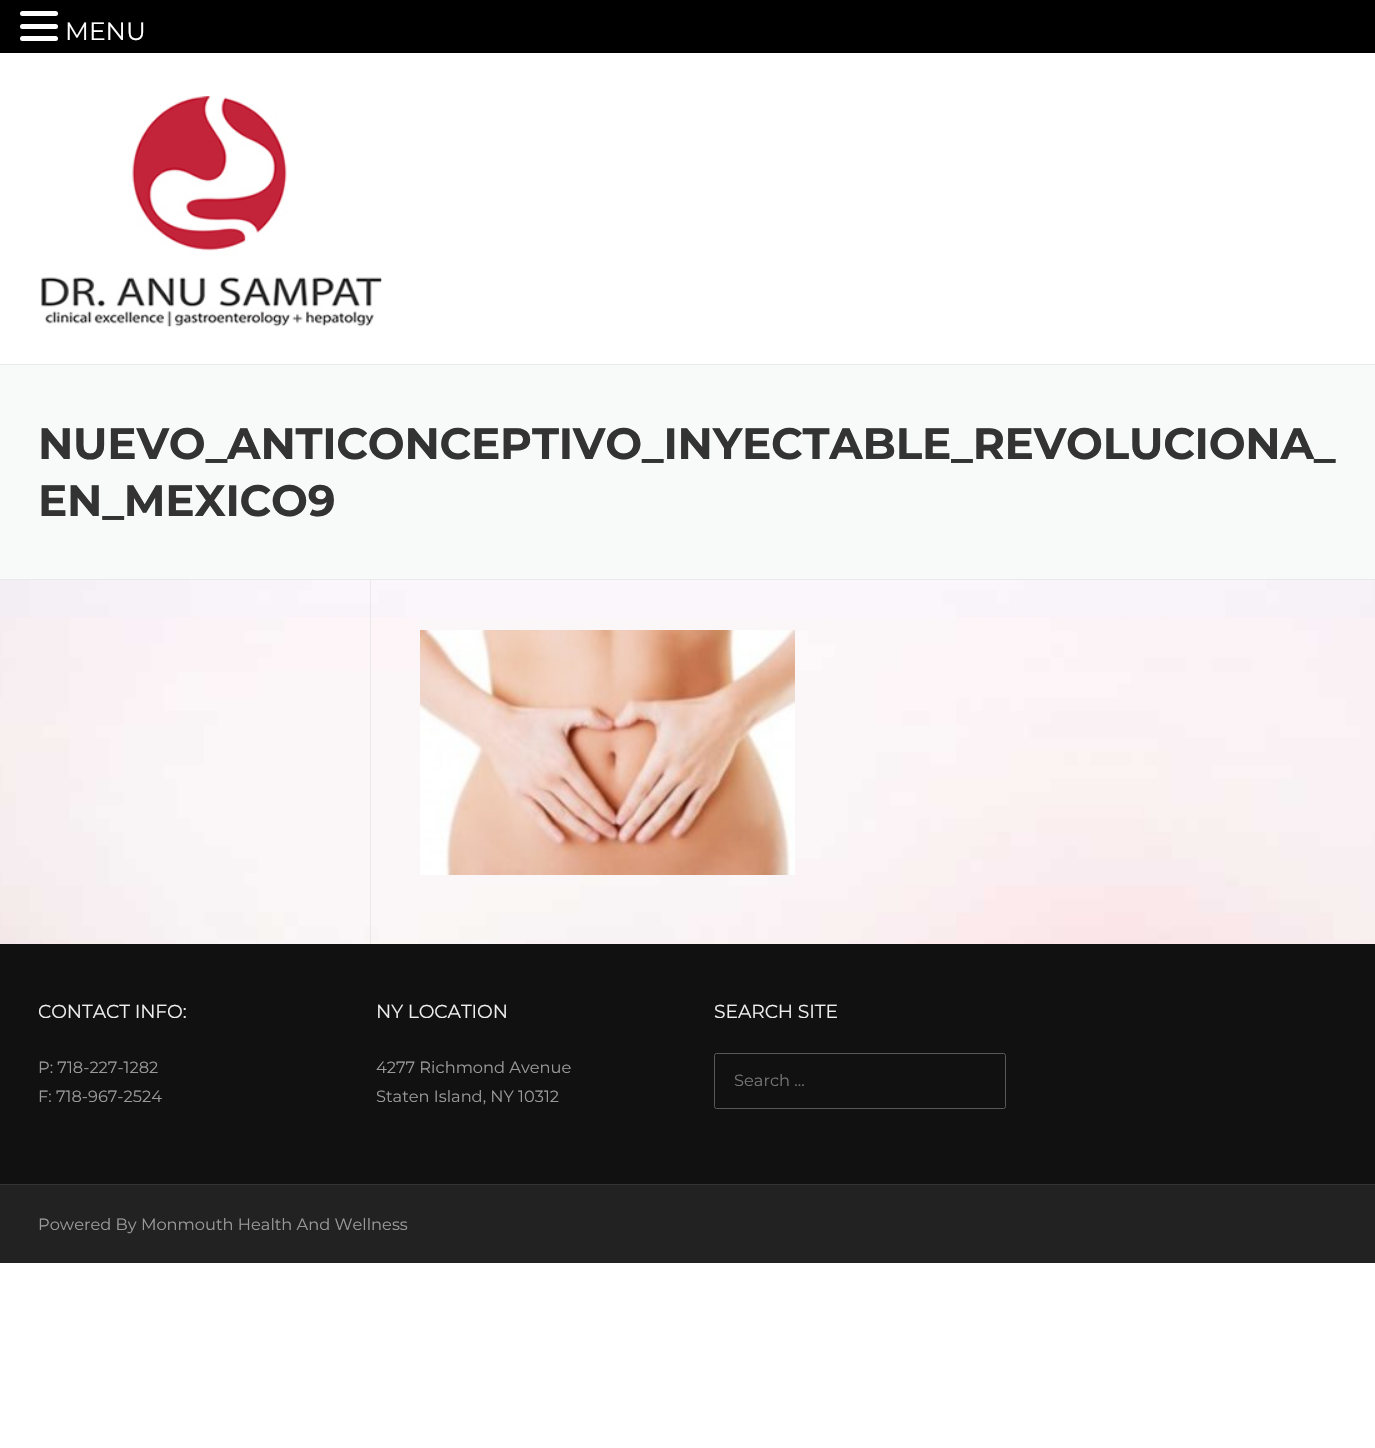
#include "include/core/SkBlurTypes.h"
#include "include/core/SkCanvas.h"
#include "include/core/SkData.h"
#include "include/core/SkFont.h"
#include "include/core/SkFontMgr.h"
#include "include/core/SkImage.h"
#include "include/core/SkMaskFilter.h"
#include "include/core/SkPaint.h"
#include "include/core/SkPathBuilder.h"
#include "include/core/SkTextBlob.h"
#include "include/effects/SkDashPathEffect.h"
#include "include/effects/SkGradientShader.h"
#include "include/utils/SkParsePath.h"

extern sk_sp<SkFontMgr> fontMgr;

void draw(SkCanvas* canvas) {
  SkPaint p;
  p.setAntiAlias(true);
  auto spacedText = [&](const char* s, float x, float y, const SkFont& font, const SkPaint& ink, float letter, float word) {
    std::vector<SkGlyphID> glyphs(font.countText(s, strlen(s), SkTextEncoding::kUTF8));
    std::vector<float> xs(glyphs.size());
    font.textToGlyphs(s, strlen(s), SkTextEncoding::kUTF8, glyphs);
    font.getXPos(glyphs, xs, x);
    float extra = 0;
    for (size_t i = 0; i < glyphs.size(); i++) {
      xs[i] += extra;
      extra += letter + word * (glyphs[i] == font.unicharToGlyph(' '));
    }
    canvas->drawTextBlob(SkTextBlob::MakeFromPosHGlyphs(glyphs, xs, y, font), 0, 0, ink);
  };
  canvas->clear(SK_ColorWHITE);
  p.setColor(SK_ColorBLACK);
  canvas->drawRect(SkRect::MakeLTRB(0, 0, 1375, 53), p);
  p.setColor(SK_ColorWHITE);
  canvas->drawRoundRect(SkRect::MakeLTRB(20, 11, 58, 16), 2.5f, 2.5f, p);
  canvas->drawRoundRect(SkRect::MakeLTRB(20, 24, 58, 29), 2.5f, 2.5f, p);
  canvas->drawRoundRect(SkRect::MakeLTRB(20, 36, 58, 41), 2.5f, 2.5f, p);
  canvas->drawImageRect(SkImages::DeferredFromEncodedData(SkData::MakeFromFileName("images/1.png")), SkRect::MakeLTRB(0, 53, 1375, 944), SkSamplingOptions());
  p.setColor(SkColorSetARGB(252, 255, 255, 255));
  canvas->drawRect(SkRect::MakeLTRB(0, 53, 1375, 364), p);
  canvas->drawImageRect(SkImages::DeferredFromEncodedData(SkData::MakeFromFileName("images/2.png")), SkRect::MakeLTRB(40, 96, 382, 327), SkSamplingOptions());
  p.setColor(SkColorSetRGB(248, 249, 249));
  canvas->drawRect(SkRect::MakeLTRB(0, 365, 1375, 579), p);
  p.setColor(SkColorSetRGB(233, 233, 233));
  canvas->drawRect(SkRect::MakeLTRB(0, 364, 1375, 365), p);
  canvas->drawRect(SkRect::MakeLTRB(0, 579, 1375, 580), p);
  canvas->drawRect(SkRect::MakeLTRB(370, 580, 371, 944), p);
  canvas->drawImageRect(SkImages::DeferredFromEncodedData(SkData::MakeFromFileName("images/3.png")), SkRect::MakeLTRB(420, 630, 795, 875), SkSamplingOptions());
  p.setColor(SkColorSetRGB(17, 17, 17));
  canvas->drawRect(SkRect::MakeLTRB(0, 944, 1375, 1184), p);
  p.setStyle(SkPaint::kStroke_Style);
  p.setStrokeWidth(1);
  p.setColor(SkColorSetRGB(88, 88, 88));
  canvas->drawRoundRect(SkRect::MakeLTRB(714.5f, 1053.5f, 1005.5f, 1108.5f), 2, 2, p);
  p.setStyle(SkPaint::kFill_Style);
  p.setColor(SkColorSetRGB(34, 34, 34));
  canvas->drawRect(SkRect::MakeLTRB(0, 1185, 1375, 1263), p);
  p.setColor(SkColorSetRGB(51, 51, 51));
  canvas->drawRect(SkRect::MakeLTRB(0, 1184, 1375, 1185), p);
  SkFont font1(fontMgr->matchFamilyStyle("Montserrat", SkFontStyle::Normal()), 25);
  font1.setSubpixel(true);
  p.setColor(SK_ColorWHITE);
  canvas->drawString("MENU", 65, 40, font1, p);
  SkFont font2(fontMgr->matchFamilyStyle("Montserrat", SkFontStyle::Bold()), 43.75f);
  font2.setSubpixel(true);
  p.setColor(SkColorSetRGB(51, 51, 51));
  spacedText("NUEVO_ANTICONCEPTIVO_INYECTABLE_REVOLUCIONA_", 38, 459, font2, p, -0.25f, 0);
  spacedText("EN_MEXICO9", 38, 516, font2, p, -0.25f, 0);
  SkFont font3(fontMgr->matchFamilyStyle("Montserrat", SkFontStyle::Normal()), 18.75f);
  font3.setSubpixel(true);
  p.setColor(SkColorSetRGB(238, 238, 238));
  spacedText("CONTACT INFO:", 38, 1018, font3, p, -0.1f, 0);
  SkFont font4(fontMgr->matchFamilyStyle("Montserrat", SkFontStyle::Normal()), 16.25f);
  font4.setSubpixel(true);
  p.setColor(SkColorSetRGB(153, 153, 153));
  canvas->drawString("P: 718-227-1282", 38, 1073, font4, p);
  canvas->drawString("F: 718-967-2524", 38, 1102, font4, p);
  p.setColor(SkColorSetRGB(238, 238, 238));
  spacedText("NY LOCATION", 376, 1018, font3, p, -0.1f, 0);
  p.setColor(SkColorSetRGB(153, 153, 153));
  canvas->drawString("4277 Richmond Avenue", 376, 1073, font4, p);
  canvas->drawString("Staten Island, NY 10312", 376, 1102, font4, p);
  p.setColor(SkColorSetRGB(238, 238, 238));
  spacedText("SEARCH SITE", 714, 1018, font3, p, -0.1f, 0);
  p.setColor(SkColorSetRGB(117, 117, 117));
  canvas->drawString("Search …", 734, 1086, font4, p);
  p.setColor(SkColorSetRGB(153, 153, 153));
  canvas->drawString("Powered By Monmouth Health And Wellness", 38, 1230, font4, p);
}
